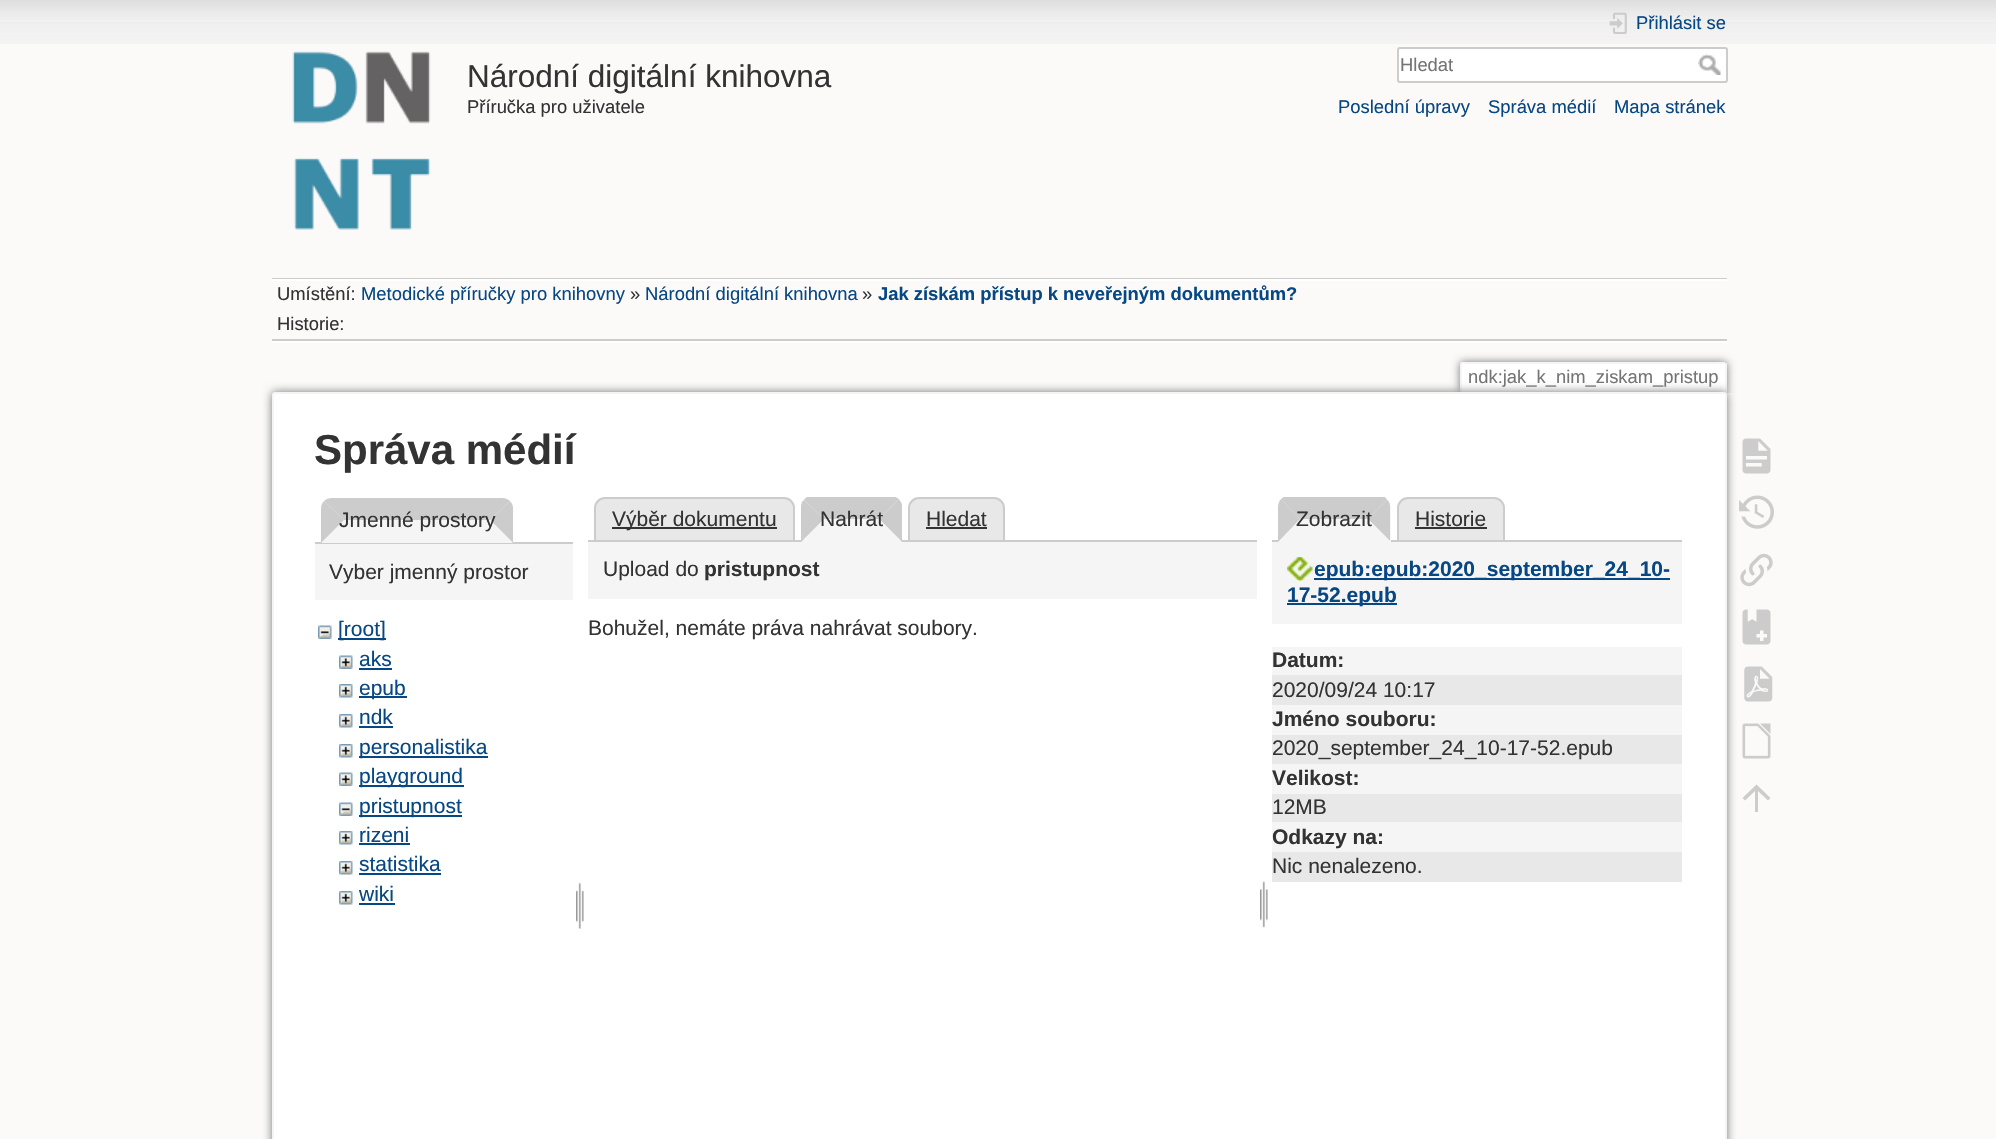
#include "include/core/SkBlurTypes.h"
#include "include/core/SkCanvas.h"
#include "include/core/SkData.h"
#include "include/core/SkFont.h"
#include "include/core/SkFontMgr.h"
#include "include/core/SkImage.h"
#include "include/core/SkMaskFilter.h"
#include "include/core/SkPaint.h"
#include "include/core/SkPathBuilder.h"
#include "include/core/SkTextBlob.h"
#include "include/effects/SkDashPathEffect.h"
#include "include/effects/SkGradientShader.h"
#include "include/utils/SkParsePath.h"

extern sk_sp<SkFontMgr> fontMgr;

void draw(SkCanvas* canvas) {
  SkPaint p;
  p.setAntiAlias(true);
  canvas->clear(SkColorSetRGB(251, 250, 249));
  canvas->drawImageRect(SkImages::DeferredFromEncodedData(SkData::MakeFromFileName("images/1.png")), SkRect::MakeLTRB(0, 0, 1996, 44), SkSamplingOptions());
  canvas->drawImageRect(SkImages::DeferredFromEncodedData(SkData::MakeFromFileName("images/2.png")), SkRect::MakeLTRB(292, 51, 431, 230), SkSamplingOptions());
  canvas->drawImageRect(SkImages::DeferredFromEncodedData(SkData::MakeFromFileName("images/3.png")), SkRect::MakeLTRB(1609, 12, 1627, 34), SkSamplingOptions());
  p.setColor(SK_ColorWHITE);
  canvas->drawRoundRect(SkRect::MakeLTRB(1398, 48, 1727, 82), 2, 2, p);
  p.setStyle(SkPaint::kStroke_Style);
  p.setStrokeWidth(2);
  p.setColor(SkColorSetRGB(204, 204, 204));
  canvas->drawRoundRect(SkRect::MakeLTRB(1398, 48, 1727, 82), 2, 2, p);
  canvas->drawImageRect(SkImages::DeferredFromEncodedData(SkData::MakeFromFileName("images/4.png")), SkRect::MakeLTRB(1698, 54, 1721, 75), SkSamplingOptions());
  p.setStyle(SkPaint::kFill_Style);
  canvas->drawRect(SkRect::MakeLTRB(272, 278, 1727, 279), p);
  p.setColor(SK_ColorWHITE);
  canvas->drawRect(SkRect::MakeLTRB(272, 341, 1727, 343), p);
  canvas->drawRect(SkRect::MakeLTRB(272, 279, 1727, 281), p);
  p.setColor(SkColorSetRGB(204, 204, 204));
  canvas->drawRect(SkRect::MakeLTRB(272, 339, 1727, 341), p);
  canvas->save();
  canvas->clipRect(SkRect::MakeLTRB(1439, 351, 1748, 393));
  p.setColor(SkColorSetRGB(117, 117, 117));
  p.setMaskFilter(SkMaskFilter::MakeBlur(kNormal_SkBlurStyle, 4.5f));
  canvas->drawRoundRect(SkRect::MakeLTRB(1460, 362, 1727, 393), 3, 3, p);
  p.setMaskFilter(nullptr);
  canvas->restore();
  p.setColor(SK_ColorWHITE);
  canvas->drawRect(SkRect::MakeLTRB(1462, 364, 1725, 393), p);
  p.setColor(SkColorSetRGB(245, 245, 245));
  canvas->drawRect(SkRect::MakeLTRB(1461, 362, 1725, 364), p);
  canvas->drawRect(SkRect::MakeLTRB(1725, 363, 1727, 393), p);
  canvas->drawRect(SkRect::MakeLTRB(1460, 363, 1462, 393), p);
  p.setColor(SkColorSetRGB(117, 117, 117));
  p.setMaskFilter(SkMaskFilter::MakeBlur(kNormal_SkBlurStyle, 5));
  canvas->drawRoundRect(SkRect::MakeLTRB(272, 392, 1727, 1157), 3, 3, p);
  p.setMaskFilter(nullptr);
  p.setColor(SK_ColorWHITE);
  canvas->drawRoundRect(SkRect::MakeLTRB(273, 393, 1726, 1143), 2, 2, p);
  p.setStyle(SkPaint::kStroke_Style);
  p.setColor(SkColorSetRGB(245, 245, 245));
  canvas->drawRoundRect(SkRect::MakeLTRB(273, 393, 1726, 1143), 2, 2, p);
  p.setStyle(SkPaint::kFill_Style);
  p.setColor(SkColorSetRGB(204, 204, 204));
  canvas->drawPath(SkPathBuilder().moveTo(332, 498).lineTo(502, 498).cubicTo(505, 498, 508, 499, 510, 501).lineTo(490, 520).lineTo(344, 520).lineTo(324, 501).cubicTo(326, 499, 329, 498, 332, 498).close().detach(), p);
  canvas->drawRect(SkRect::MakeLTRB(315, 542, 573, 544), p);
  canvas->drawPath(SkPathBuilder().moveTo(510, 501).lineTo(490, 520).lineTo(513, 543).lineTo(513, 508).cubicTo(513, 506, 512, 503, 510, 501).close().detach(), p);
  p.setColor(SkColorSetRGB(245, 245, 245));
  canvas->drawPath(SkPathBuilder().moveTo(513, 543).lineTo(490, 520).lineTo(344, 520).lineTo(321, 543).close().detach(), p);
  p.setColor(SkColorSetRGB(204, 204, 204));
  canvas->drawPath(SkPathBuilder().moveTo(321, 543).lineTo(321, 508).cubicTo(321, 506, 322, 503, 324, 501).lineTo(344, 520).close().detach(), p);
  p.setColor(SkColorSetRGB(245, 245, 245));
  canvas->drawRect(SkRect::MakeLTRB(315, 544, 573, 600), p);
  canvas->drawImageRect(SkImages::DeferredFromEncodedData(SkData::MakeFromFileName("images/5.png")), SkRect::MakeLTRB(318, 625, 332, 639), SkSamplingOptions());
  p.setColor(SkColorSetRGB(6, 71, 132));
  canvas->drawRect(SkRect::MakeLTRB(338, 638, 386, 640), p);
  canvas->drawImageRect(SkImages::DeferredFromEncodedData(SkData::MakeFromFileName("images/6.png")), SkRect::MakeLTRB(339, 655, 353, 669), SkSamplingOptions());
  canvas->drawRect(SkRect::MakeLTRB(359, 668, 392, 670), p);
  canvas->drawImageRect(SkImages::DeferredFromEncodedData(SkData::MakeFromFileName("images/7.png")), SkRect::MakeLTRB(339, 684, 353, 698), SkSamplingOptions());
  canvas->drawRect(SkRect::MakeLTRB(359, 696, 407, 698), p);
  canvas->drawImageRect(SkImages::DeferredFromEncodedData(SkData::MakeFromFileName("images/7.png")), SkRect::MakeLTRB(339, 714, 353, 728), SkSamplingOptions());
  canvas->drawRect(SkRect::MakeLTRB(359, 726, 393, 728), p);
  canvas->drawImageRect(SkImages::DeferredFromEncodedData(SkData::MakeFromFileName("images/7.png")), SkRect::MakeLTRB(339, 744, 353, 758), SkSamplingOptions());
  canvas->drawRect(SkRect::MakeLTRB(359, 756, 488, 758), p);
  canvas->drawImageRect(SkImages::DeferredFromEncodedData(SkData::MakeFromFileName("images/6.png")), SkRect::MakeLTRB(339, 772, 353, 786), SkSamplingOptions());
  canvas->drawRect(SkRect::MakeLTRB(359, 785, 464, 787), p);
  canvas->drawImageRect(SkImages::DeferredFromEncodedData(SkData::MakeFromFileName("images/5.png")), SkRect::MakeLTRB(339, 802, 353, 816), SkSamplingOptions());
  canvas->drawRect(SkRect::MakeLTRB(359, 815, 462, 817), p);
  canvas->drawImageRect(SkImages::DeferredFromEncodedData(SkData::MakeFromFileName("images/7.png")), SkRect::MakeLTRB(339, 831, 353, 845), SkSamplingOptions());
  canvas->drawRect(SkRect::MakeLTRB(359, 843, 410, 845), p);
  canvas->drawImageRect(SkImages::DeferredFromEncodedData(SkData::MakeFromFileName("images/7.png")), SkRect::MakeLTRB(339, 861, 353, 875), SkSamplingOptions());
  canvas->drawRect(SkRect::MakeLTRB(359, 873, 441, 875), p);
  canvas->drawImageRect(SkImages::DeferredFromEncodedData(SkData::MakeFromFileName("images/7.png")), SkRect::MakeLTRB(339, 891, 353, 905), SkSamplingOptions());
  canvas->drawRect(SkRect::MakeLTRB(359, 903, 395, 905), p);
  canvas->drawImageRect(SkImages::DeferredFromEncodedData(SkData::MakeFromFileName("images/8.png")), SkRect::MakeLTRB(576, 882, 584, 929), SkSamplingOptions());
  p.setColor(SkColorSetRGB(232, 232, 232));
  canvas->drawPath(SkPathBuilder().moveTo(605, 498).lineTo(784, 498).cubicTo(789.5f, 498, 794, 502.5f, 794, 508).lineTo(794, 541).lineTo(595, 541).lineTo(595, 508).cubicTo(595, 502.5f, 599.5f, 498, 605, 498).close().detach(), p);
  p.setStyle(SkPaint::kStroke_Style);
  p.setColor(SkColorSetRGB(204, 204, 204));
  canvas->drawPath(SkPathBuilder().moveTo(605, 498).lineTo(784, 498).cubicTo(789.5f, 498, 794, 502.5f, 794, 508).lineTo(794, 541).lineTo(595, 541).lineTo(595, 508).cubicTo(595, 502.5f, 599.5f, 498, 605, 498).close().detach(), p);
  p.setStyle(SkPaint::kFill_Style);
  p.setColor(SkColorSetRGB(51, 51, 51));
  canvas->drawRect(SkRect::MakeLTRB(612, 527, 777, 529), p);
  canvas->save();
  canvas->clipRect(SkRect::MakeLTRB(588, 497, 1257, 542));
  p.setColor(SkColorSetRGB(204, 204, 204));
  canvas->drawPath(SkPathBuilder().moveTo(894, 496).lineTo(809, 496).cubicTo(807, 497, 805, 498, 804, 500).lineTo(824, 519).lineTo(879, 519).lineTo(899, 499).close().detach(), p);
  canvas->restore();
  p.setColor(SkColorSetRGB(232, 232, 232));
  canvas->drawPath(SkPathBuilder().moveTo(919, 498).lineTo(994, 498).cubicTo(999.5f, 498, 1004, 502.5f, 1004, 508).lineTo(1004, 541).lineTo(909, 541).lineTo(909, 508).cubicTo(909, 502.5f, 913.5f, 498, 919, 498).close().detach(), p);
  p.setStyle(SkPaint::kStroke_Style);
  p.setColor(SkColorSetRGB(204, 204, 204));
  canvas->drawPath(SkPathBuilder().moveTo(919, 498).lineTo(994, 498).cubicTo(999.5f, 498, 1004, 502.5f, 1004, 508).lineTo(1004, 541).lineTo(909, 541).lineTo(909, 508).cubicTo(909, 502.5f, 913.5f, 498, 919, 498).close().detach(), p);
  p.setStyle(SkPaint::kFill_Style);
  canvas->drawRect(SkRect::MakeLTRB(588, 540, 1257, 542), p);
  canvas->drawPath(SkPathBuilder().moveTo(899, 499).lineTo(879, 519).lineTo(902, 542).lineTo(902, 504).cubicTo(901, 502, 900, 501, 899, 499).close().detach(), p);
  p.setColor(SkColorSetRGB(245, 245, 245));
  canvas->drawPath(SkPathBuilder().moveTo(902, 542).lineTo(879, 519).lineTo(824, 519).lineTo(801, 542).close().detach(), p);
  p.setColor(SkColorSetRGB(204, 204, 204));
  canvas->drawPath(SkPathBuilder().moveTo(801, 542).lineTo(824, 519).lineTo(804, 500).cubicTo(802, 501, 801, 504, 801, 507).close().detach(), p);
  p.setColor(SkColorSetRGB(51, 51, 51));
  canvas->drawRect(SkRect::MakeLTRB(926, 527, 987, 529), p);
  p.setColor(SkColorSetRGB(245, 245, 245));
  canvas->drawRect(SkRect::MakeLTRB(588, 542, 1257, 599), p);
  canvas->drawImageRect(SkImages::DeferredFromEncodedData(SkData::MakeFromFileName("images/9.png")), SkRect::MakeLTRB(1260, 880, 1268, 928), SkSamplingOptions());
  p.setColor(SkColorSetRGB(232, 232, 232));
  canvas->drawPath(SkPathBuilder().moveTo(1408, 498).lineTo(1494, 498).cubicTo(1499.5f, 498, 1504, 502.5f, 1504, 508).lineTo(1504, 541).lineTo(1398, 541).lineTo(1398, 508).cubicTo(1398, 502.5f, 1402.5f, 498, 1408, 498).close().detach(), p);
  p.setStyle(SkPaint::kStroke_Style);
  p.setColor(SkColorSetRGB(204, 204, 204));
  canvas->drawPath(SkPathBuilder().moveTo(1408, 498).lineTo(1494, 498).cubicTo(1499.5f, 498, 1504, 502.5f, 1504, 508).lineTo(1504, 541).lineTo(1398, 541).lineTo(1398, 508).cubicTo(1398, 502.5f, 1402.5f, 498, 1408, 498).close().detach(), p);
  p.setStyle(SkPaint::kFill_Style);
  canvas->drawRect(SkRect::MakeLTRB(1272, 540, 1682, 542), p);
  p.setColor(SkColorSetRGB(245, 245, 245));
  canvas->drawPath(SkPathBuilder().moveTo(1289, 497).lineTo(1380, 497).cubicTo(1386, 497, 1391, 502, 1391, 508).lineTo(1391, 542).lineTo(1278, 542).lineTo(1278, 508).cubicTo(1278, 502, 1283, 497, 1289, 497).close().detach(), p);
  canvas->save();
  canvas->clipRect(SkRect::MakeLTRB(1272, 497, 1682, 542));
  p.setColor(SkColorSetRGB(204, 204, 204));
  canvas->drawPath(SkPathBuilder().moveTo(1383, 496).lineTo(1285, 496).lineTo(1281, 499).lineTo(1300, 519).lineTo(1368, 519).lineTo(1387, 500).cubicTo(1386, 498, 1385, 497, 1383, 496).close().detach(), p);
  canvas->restore();
  canvas->drawPath(SkPathBuilder().moveTo(1387, 500).lineTo(1368, 519).lineTo(1390, 541).lineTo(1390, 507).cubicTo(1390, 504, 1389, 501, 1387, 500).close().detach(), p);
  p.setColor(SkColorSetRGB(245, 245, 245));
  canvas->drawPath(SkPathBuilder().moveTo(1390, 541).lineTo(1368, 519).lineTo(1300, 519).lineTo(1278, 542).lineTo(1390, 542).close().detach(), p);
  p.setColor(SkColorSetRGB(204, 204, 204));
  canvas->drawPath(SkPathBuilder().moveTo(1278, 542).lineTo(1300, 519).lineTo(1281, 499).cubicTo(1279, 501, 1278, 504, 1278, 507).close().detach(), p);
  p.setColor(SkColorSetRGB(51, 51, 51));
  canvas->drawRect(SkRect::MakeLTRB(1415, 527, 1487, 529), p);
  p.setColor(SkColorSetRGB(245, 245, 245));
  canvas->drawRect(SkRect::MakeLTRB(1272, 542, 1682, 624), p);
  canvas->drawImageRect(SkImages::DeferredFromEncodedData(SkData::MakeFromFileName("images/10.png")), SkRect::MakeLTRB(1287, 557, 1313, 581), SkSamplingOptions());
  p.setColor(SkColorSetRGB(6, 71, 132));
  canvas->drawRect(SkRect::MakeLTRB(1314, 578, 1670, 580), p);
  canvas->drawRect(SkRect::MakeLTRB(1287, 603, 1397, 605), p);
  p.setColor(SkColorSetRGB(245, 245, 245));
  canvas->drawRect(SkRect::MakeLTRB(1272, 647, 1682, 675), p);
  p.setColor(SkColorSetRGB(232, 232, 232));
  canvas->drawRect(SkRect::MakeLTRB(1272, 675, 1682, 705), p);
  p.setColor(SkColorSetRGB(245, 245, 245));
  canvas->drawRect(SkRect::MakeLTRB(1272, 705, 1682, 735), p);
  p.setColor(SkColorSetRGB(232, 232, 232));
  canvas->drawRect(SkRect::MakeLTRB(1272, 735, 1682, 764), p);
  p.setColor(SkColorSetRGB(245, 245, 245));
  canvas->drawRect(SkRect::MakeLTRB(1272, 764, 1682, 794), p);
  p.setColor(SkColorSetRGB(232, 232, 232));
  canvas->drawRect(SkRect::MakeLTRB(1272, 794, 1682, 822), p);
  p.setColor(SkColorSetRGB(245, 245, 245));
  canvas->drawRect(SkRect::MakeLTRB(1272, 822, 1682, 852), p);
  p.setColor(SkColorSetRGB(232, 232, 232));
  canvas->drawRect(SkRect::MakeLTRB(1272, 852, 1682, 882), p);
  canvas->drawImageRect(SkImages::DeferredFromEncodedData(SkData::MakeFromFileName("images/11.png")), SkRect::MakeLTRB(1742, 438, 1771, 474), SkSamplingOptions());
  canvas->drawImageRect(SkImages::DeferredFromEncodedData(SkData::MakeFromFileName("images/12.png")), SkRect::MakeLTRB(1739, 495, 1774, 529), SkSamplingOptions());
  canvas->drawImageRect(SkImages::DeferredFromEncodedData(SkData::MakeFromFileName("images/13.png")), SkRect::MakeLTRB(1740, 553, 1773, 587), SkSamplingOptions());
  canvas->drawImageRect(SkImages::DeferredFromEncodedData(SkData::MakeFromFileName("images/14.png")), SkRect::MakeLTRB(1742, 609, 1771, 645), SkSamplingOptions());
  canvas->drawImageRect(SkImages::DeferredFromEncodedData(SkData::MakeFromFileName("images/15.png")), SkRect::MakeLTRB(1744, 666, 1773, 702), SkSamplingOptions());
  canvas->drawImageRect(SkImages::DeferredFromEncodedData(SkData::MakeFromFileName("images/16.png")), SkRect::MakeLTRB(1742, 723, 1771, 759), SkSamplingOptions());
  p.setColor(SkColorSetRGB(204, 204, 204));
  canvas->drawPath(SkPathBuilder().moveTo(1758, 812).lineTo(1755, 812).lineTo(1755, 791).lineTo(1745, 800.5f).lineTo(1742.5f, 798).lineTo(1756.5f, 784.5f).lineTo(1770.5f, 798).lineTo(1768, 800.5f).lineTo(1758, 791).close().detach(), p);
  SkFont font1(fontMgr->matchFamilyStyle("Liberation Sans", SkFontStyle::Normal()), 31.5f);
  font1.setSubpixel(true);
  p.setColor(SkColorSetRGB(51, 51, 51));
  canvas->drawString("Národní digitální knihovna", 467, 87, font1, p);
  SkFont font2(fontMgr->matchFamilyStyle("Liberation Sans", SkFontStyle::Normal()), 18.4f);
  font2.setSubpixel(true);
  canvas->drawString("Příručka pro uživatele", 467, 113, font2, p);
  p.setColor(SkColorSetRGB(6, 71, 132));
  canvas->drawString("Přihlásit se", 1636, 29, font2, p);
  p.setColor(SkColorSetRGB(117, 117, 117));
  canvas->drawString("Hledat", 1400, 71, font2, p);
  p.setColor(SkColorSetRGB(6, 71, 132));
  canvas->drawString("Poslední úpravy", 1338, 113, font2, p);
  canvas->drawString("Správa médií", 1488, 113, font2, p);
  canvas->drawString("Mapa stránek", 1614, 113, font2, p);
  p.setColor(SkColorSetRGB(51, 51, 51));
  canvas->drawString("Umístění:", 277, 300, font2, p);
  p.setColor(SkColorSetRGB(6, 71, 132));
  canvas->drawString("Metodické příručky pro knihovny", 361, 300, font2, p);
  p.setColor(SkColorSetRGB(51, 51, 51));
  canvas->drawString("»", 630, 300, font2, p);
  p.setColor(SkColorSetRGB(6, 71, 132));
  canvas->drawString("Národní digitální knihovna", 645, 300, font2, p);
  p.setColor(SkColorSetRGB(51, 51, 51));
  canvas->drawString("»", 862, 300, font2, p);
  SkFont font3(fontMgr->matchFamilyStyle("Liberation Sans", SkFontStyle::Bold()), 18.4f);
  font3.setSubpixel(true);
  p.setColor(SkColorSetRGB(6, 71, 132));
  canvas->drawString("Jak získám přístup k neveřejným dokumentům?", 878, 300, font3, p);
  p.setColor(SkColorSetRGB(51, 51, 51));
  canvas->drawString("Historie:", 277, 330, font2, p);
  p.setColor(SkColorSetRGB(117, 117, 117));
  canvas->drawString("ndk:jak_k_nim_ziskam_pristup", 1468, 383, font2, p);
  SkFont font4(fontMgr->matchFamilyStyle("Liberation Sans", SkFontStyle::Bold()), 42);
  font4.setSubpixel(true);
  p.setColor(SkColorSetRGB(51, 51, 51));
  canvas->drawString("Správa médií", 314, 464, font4, p);
  SkFont font5(fontMgr->matchFamilyStyle("Liberation Sans", SkFontStyle::Normal()), 21);
  font5.setSubpixel(true);
  canvas->drawString("Jmenné prostory", 339, 527, font5, p);
  canvas->drawString("Vyber jmenný prostor", 329, 579, font5, p);
  p.setColor(SkColorSetRGB(6, 71, 132));
  canvas->drawString("[root]", 338, 636, font5, p);
  canvas->drawString("aks", 359, 666, font5, p);
  canvas->drawString("epub", 359, 695, font5, p);
  canvas->drawString("ndk", 359, 724, font5, p);
  canvas->drawString("personalistika", 359, 754, font5, p);
  canvas->drawString("playground", 359, 783, font5, p);
  canvas->drawString("pristupnost", 359, 813, font5, p);
  canvas->drawString("rizeni", 359, 842, font5, p);
  canvas->drawString("statistika", 359, 871, font5, p);
  canvas->drawString("wiki", 359, 901, font5, p);
  p.setColor(SkColorSetRGB(51, 51, 51));
  canvas->drawString("Výběr dokumentu", 612, 526, font5, p);
  canvas->drawString("Nahrát", 820, 526, font5, p);
  canvas->drawString("Hledat", 926, 526, font5, p);
  canvas->drawString("Upload do", 603, 576, font5, p);
  SkFont font6(fontMgr->matchFamilyStyle("Liberation Sans", SkFontStyle::Bold()), 21);
  font6.setSubpixel(true);
  canvas->drawString("pristupnost", 704, 576, font6, p);
  canvas->drawString("Bohužel, nemáte práva nahrávat soubory.", 588, 635, font5, p);
  canvas->drawString("Zobrazit", 1296, 526, font5, p);
  canvas->drawString("Historie", 1415, 526, font5, p);
  p.setColor(SkColorSetRGB(6, 71, 132));
  canvas->drawString("epub:epub:2020_september_24_10-", 1314, 576, font6, p);
  canvas->drawString("17-52.epub", 1287, 602, font6, p);
  p.setColor(SkColorSetRGB(51, 51, 51));
  canvas->drawString("Datum:", 1272, 667, font6, p);
  canvas->drawString("2020/09/24 10:17", 1272, 697, font5, p);
  canvas->drawString("Jméno souboru:", 1272, 726, font6, p);
  canvas->drawString("2020_september_24_10-17-52.epub", 1272, 755, font5, p);
  canvas->drawString("Velikost:", 1272, 785, font6, p);
  canvas->drawString("12MB", 1272, 814, font5, p);
  canvas->drawString("Odkazy na:", 1272, 844, font6, p);
  canvas->drawString("Nic nenalezeno.", 1272, 873, font5, p);
}
